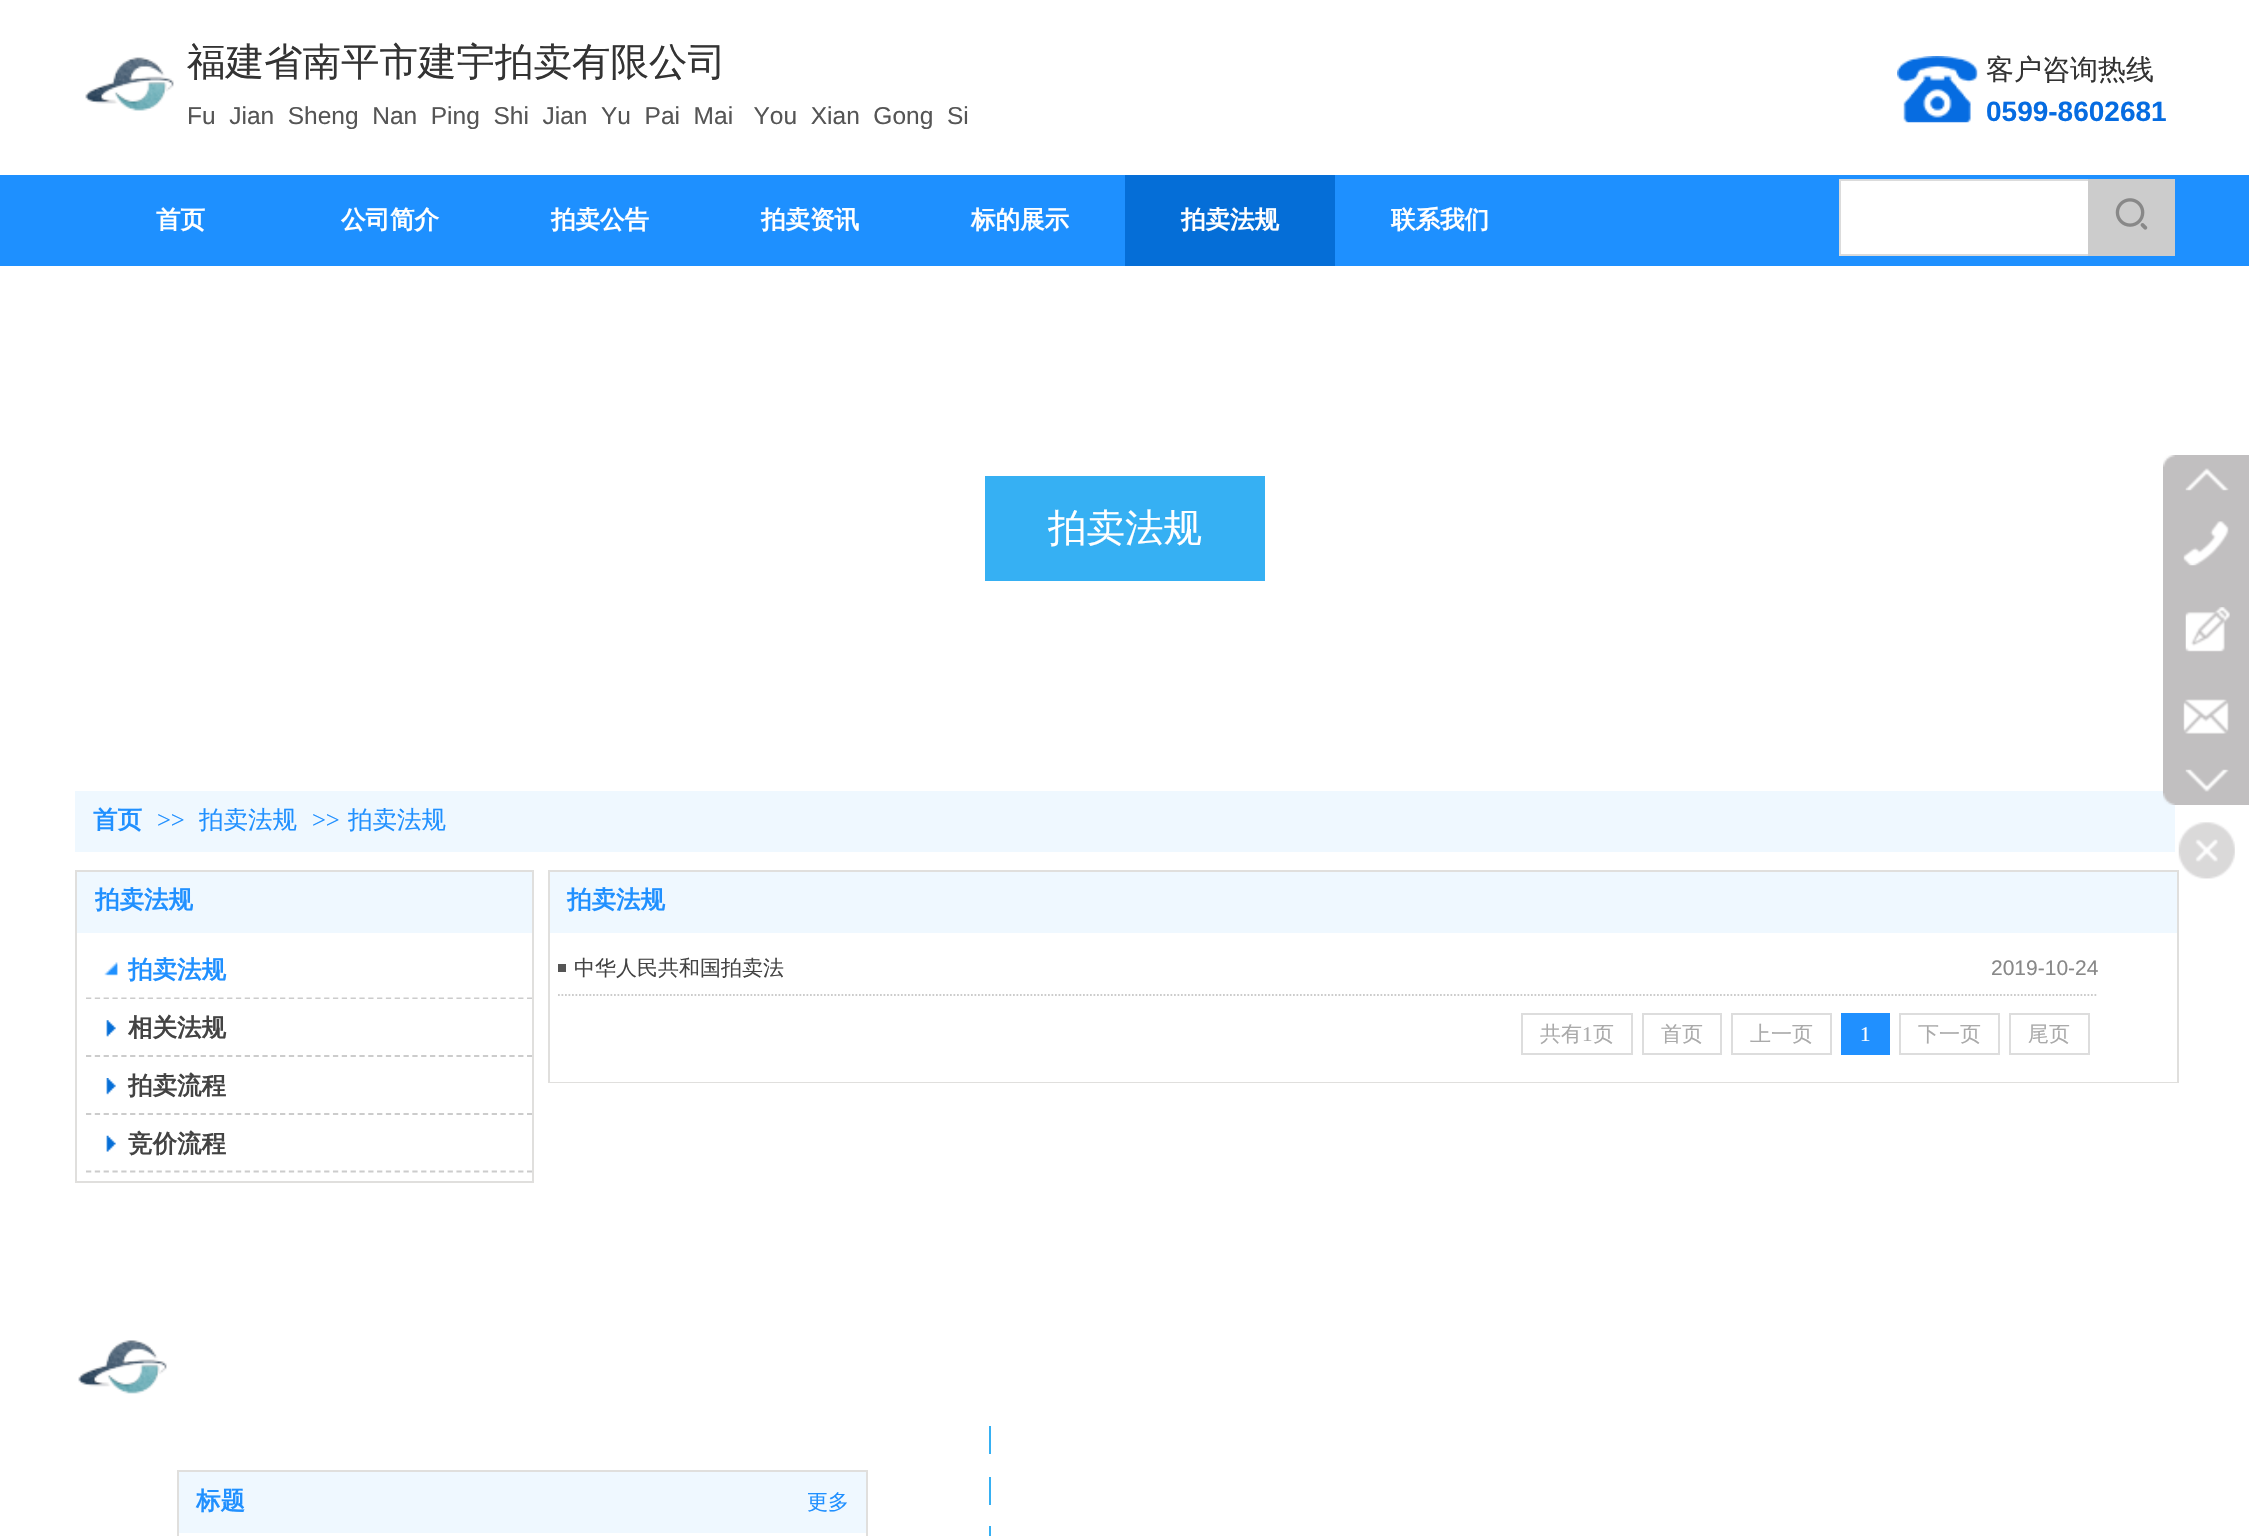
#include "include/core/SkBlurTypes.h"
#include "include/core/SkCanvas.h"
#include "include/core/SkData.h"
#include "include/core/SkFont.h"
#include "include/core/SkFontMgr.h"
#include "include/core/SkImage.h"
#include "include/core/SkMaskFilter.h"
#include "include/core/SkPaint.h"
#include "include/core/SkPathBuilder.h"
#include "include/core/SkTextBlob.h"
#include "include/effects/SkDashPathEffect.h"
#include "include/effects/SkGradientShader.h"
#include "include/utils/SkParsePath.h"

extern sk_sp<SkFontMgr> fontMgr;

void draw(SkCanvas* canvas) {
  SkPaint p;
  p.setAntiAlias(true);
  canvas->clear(SK_ColorWHITE);
  canvas->drawImageRect(SkImages::DeferredFromEncodedData(SkData::MakeFromFileName("images/1.png")), SkRect::MakeLTRB(85, 57, 174, 111), SkSamplingOptions());
  canvas->drawImageRect(SkImages::DeferredFromEncodedData(SkData::MakeFromFileName("images/2.png")), SkRect::MakeLTRB(1897, 56, 1978, 123), SkSamplingOptions());
  p.setColor(SkColorSetRGB(30, 144, 255));
  canvas->drawRect(SkRect::MakeLTRB(0, 175, 2249, 266), p);
  p.setColor(SK_ColorWHITE);
  canvas->drawRect(SkRect::MakeLTRB(1841, 181, 2088, 254), p);
  p.setStyle(SkPaint::kStroke_Style);
  p.setStrokeWidth(2);
  p.setColor(SkColorSetRGB(219, 219, 219));
  canvas->drawRect(SkRect::MakeLTRB(1840, 180, 2174, 255), p);
  p.setStyle(SkPaint::kFill_Style);
  p.setColor(SkColorSetRGB(204, 204, 204));
  canvas->drawRect(SkRect::MakeLTRB(2088, 179, 2175, 256), p);
  canvas->drawImageRect(SkImages::DeferredFromEncodedData(SkData::MakeFromFileName("images/3.png")), SkRect::MakeLTRB(2115, 198, 2148, 230), SkSamplingOptions());
  p.setColor(SkColorSetRGB(5, 110, 215));
  canvas->drawRect(SkRect::MakeLTRB(1125, 175, 1335, 266), p);
  p.setColor(SkColorSetRGB(54, 176, 243));
  canvas->drawRect(SkRect::MakeLTRB(985, 476, 1265, 581), p);
  p.setColor(SkColorSetRGB(239, 248, 255));
  canvas->drawRect(SkRect::MakeLTRB(75, 791, 2175, 852), p);
  p.setStyle(SkPaint::kStroke_Style);
  p.setColor(SkColorSetRGB(224, 223, 221));
  canvas->drawRect(SkRect::MakeLTRB(76, 871, 533, 1182), p);
  p.setStyle(SkPaint::kFill_Style);
  p.setColor(SkColorSetRGB(239, 248, 255));
  canvas->drawRect(SkRect::MakeLTRB(77, 872, 532, 933), p);
  canvas->save();
  canvas->clipRect(SkRect::MakeLTRB(86, 942, 532, 999));
  p.setStyle(SkPaint::kStroke_Style);
  p.setStrokeWidth(1.8f);
  p.setColor(SkColorSetRGB(204, 204, 204));
  p.setPathEffect(SkDashPathEffect::Make({{5.25f, 3.57f}}, 0));
  canvas->drawPath(SkPathBuilder().moveTo(86, 998.5f).lineTo(541, 998.5f).detach(), p);
  p.setPathEffect(nullptr);
  canvas->restore();
  canvas->drawImageRect(SkImages::DeferredFromEncodedData(SkData::MakeFromFileName("images/4.png")), SkRect::MakeLTRB(104, 962, 118, 976), SkSamplingOptions());
  canvas->save();
  canvas->clipRect(SkRect::MakeLTRB(86, 999, 532, 1057));
  p.setPathEffect(SkDashPathEffect::Make({{5.25f, 3.57f}}, 0));
  canvas->drawPath(SkPathBuilder().moveTo(86, 1056).lineTo(541, 1056).detach(), p);
  p.setPathEffect(nullptr);
  canvas->restore();
  canvas->drawImageRect(SkImages::DeferredFromEncodedData(SkData::MakeFromFileName("images/5.png")), SkRect::MakeLTRB(106, 1020, 116, 1037), SkSamplingOptions());
  canvas->save();
  canvas->clipRect(SkRect::MakeLTRB(86, 1057, 532, 1115));
  p.setPathEffect(SkDashPathEffect::Make({{5.25f, 3.57f}}, 0));
  canvas->drawPath(SkPathBuilder().moveTo(86, 1114).lineTo(541, 1114).detach(), p);
  p.setPathEffect(nullptr);
  canvas->restore();
  canvas->drawImageRect(SkImages::DeferredFromEncodedData(SkData::MakeFromFileName("images/6.png")), SkRect::MakeLTRB(106, 1078, 116, 1095), SkSamplingOptions());
  canvas->save();
  canvas->clipRect(SkRect::MakeLTRB(86, 1115, 532, 1173));
  p.setPathEffect(SkDashPathEffect::Make({{5.25f, 3.57f}}, 0));
  canvas->drawPath(SkPathBuilder().moveTo(86, 1171.5f).lineTo(541, 1171.5f).detach(), p);
  p.setPathEffect(nullptr);
  canvas->restore();
  canvas->drawImageRect(SkImages::DeferredFromEncodedData(SkData::MakeFromFileName("images/7.png")), SkRect::MakeLTRB(106, 1135, 116, 1152), SkSamplingOptions());
  p.setStrokeWidth(2);
  p.setColor(SkColorSetRGB(224, 223, 221));
  canvas->drawRect(SkRect::MakeLTRB(549, 871, 2178, 1082), p);
  p.setStyle(SkPaint::kFill_Style);
  p.setColor(SkColorSetRGB(239, 248, 255));
  canvas->drawRect(SkRect::MakeLTRB(550, 872, 2177, 933), p);
  p.setColor(SK_ColorWHITE);
  canvas->drawRect(SkRect::MakeLTRB(550, 1081, 2177, 1082), p);
  p.setStyle(SkPaint::kStroke_Style);
  p.setStrokeWidth(1.8f);
  p.setColor(SkColorSetRGB(204, 204, 204));
  p.setPathEffect(SkDashPathEffect::Make({{1.75f, 1.75f}}, 0));
  canvas->drawPath(SkPathBuilder().moveTo(558, 995).lineTo(2098, 995).detach(), p);
  p.setPathEffect(nullptr);
  p.setStyle(SkPaint::kFill_Style);
  p.setColor(SkColorSetRGB(85, 85, 85));
  canvas->drawRect(SkRect::MakeLTRB(558, 964, 566, 972), p);
  p.setStyle(SkPaint::kStroke_Style);
  p.setStrokeWidth(2);
  p.setColor(SkColorSetRGB(221, 221, 221));
  canvas->drawRect(SkRect::MakeLTRB(1522, 1014, 1632, 1054), p);
  canvas->drawRect(SkRect::MakeLTRB(1643, 1014, 1721, 1054), p);
  canvas->drawRect(SkRect::MakeLTRB(1732, 1014, 1831, 1054), p);
  p.setStyle(SkPaint::kFill_Style);
  p.setColor(SkColorSetRGB(32, 144, 255));
  canvas->drawRect(SkRect::MakeLTRB(1841, 1013, 1890, 1055), p);
  p.setStyle(SkPaint::kStroke_Style);
  p.setColor(SkColorSetRGB(221, 221, 221));
  canvas->drawRect(SkRect::MakeLTRB(1900, 1014, 1999, 1054), p);
  canvas->drawRect(SkRect::MakeLTRB(2010, 1014, 2089, 1054), p);
  canvas->drawImageRect(SkImages::DeferredFromEncodedData(SkData::MakeFromFileName("images/8.png")), SkRect::MakeLTRB(2163, 455, 2175, 467), SkSamplingOptions());
  p.setStyle(SkPaint::kFill_Style);
  p.setColor(SkColorSetRGB(193, 191, 192));
  canvas->drawRect(SkRect::MakeLTRB(2175, 455, 2249, 467), p);
  canvas->drawRect(SkRect::MakeLTRB(2163, 467, 2249, 793), p);
  canvas->drawImageRect(SkImages::DeferredFromEncodedData(SkData::MakeFromFileName("images/9.png")), SkRect::MakeLTRB(2185, 468, 2229, 491), SkSamplingOptions());
  canvas->drawImageRect(SkImages::DeferredFromEncodedData(SkData::MakeFromFileName("images/10.png")), SkRect::MakeLTRB(2183, 521, 2229, 566), SkSamplingOptions());
  canvas->drawImageRect(SkImages::DeferredFromEncodedData(SkData::MakeFromFileName("images/11.png")), SkRect::MakeLTRB(2185, 607, 2230, 652), SkSamplingOptions());
  canvas->drawImageRect(SkImages::DeferredFromEncodedData(SkData::MakeFromFileName("images/12.png")), SkRect::MakeLTRB(2183, 699, 2229, 734), SkSamplingOptions());
  canvas->drawImageRect(SkImages::DeferredFromEncodedData(SkData::MakeFromFileName("images/13.png")), SkRect::MakeLTRB(2185, 769, 2229, 792), SkSamplingOptions());
  canvas->drawImageRect(SkImages::DeferredFromEncodedData(SkData::MakeFromFileName("images/14.png")), SkRect::MakeLTRB(2163, 793, 2175, 805), SkSamplingOptions());
  canvas->drawRect(SkRect::MakeLTRB(2175, 793, 2249, 805), p);
  canvas->drawImageRect(SkImages::DeferredFromEncodedData(SkData::MakeFromFileName("images/15.png")), SkRect::MakeLTRB(2178, 822, 2235, 879), SkSamplingOptions());
  canvas->drawImageRect(SkImages::DeferredFromEncodedData(SkData::MakeFromFileName("images/16.png")), SkRect::MakeLTRB(78, 1340, 167, 1394), SkSamplingOptions());
  p.setColor(SkColorSetRGB(54, 176, 243));
  canvas->drawRect(SkRect::MakeLTRB(989, 1426, 991, 1454), p);
  p.setStyle(SkPaint::kStroke_Style);
  p.setColor(SkColorSetRGB(224, 223, 221));
  canvas->drawRect(SkRect::MakeLTRB(178, 1471, 867, 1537), p);
  p.setStyle(SkPaint::kFill_Style);
  p.setColor(SkColorSetRGB(239, 248, 255));
  canvas->drawRect(SkRect::MakeLTRB(179, 1472, 866, 1533), p);
  p.setColor(SkColorSetRGB(54, 176, 243));
  canvas->drawRect(SkRect::MakeLTRB(989, 1477, 991, 1505), p);
  canvas->drawRect(SkRect::MakeLTRB(989, 1526, 991, 1536), p);
  SkFont font1(fontMgr->matchFamilyStyle("WenQuanYi Zen Hei", SkFontStyle(500, SkFontStyle::kNormal_Width, SkFontStyle::kUpright_Slant)), 38.5f);
  font1.setSubpixel(true);
  p.setColor(SkColorSetRGB(51, 51, 51));
  canvas->drawString("福建省南平市建宇拍卖有限公司", 187, 75, font1, p);
  SkFont font2(fontMgr->matchFamilyStyle("WenQuanYi Zen Hei", SkFontStyle(500, SkFontStyle::kNormal_Width, SkFontStyle::kUpright_Slant)), 28);
  font2.setSubpixel(true);
  canvas->drawString("客户咨询热线", 1986, 79, font2, p);
  SkFont font3(fontMgr->matchFamilyStyle("Liberation Sans", SkFontStyle::Normal()), 24.5f);
  font3.setSubpixel(true);
  p.setColor(SkColorSetRGB(85, 85, 85));
  canvas->drawString("Fu  Jian  Sheng  Nan  Ping  Shi  Jian  Yu  Pai  Mai   You  Xian  Gong  Si", 187, 124, font3, p);
  SkFont font4(fontMgr->matchFamilyStyle("Liberation Sans", SkFontStyle::Bold()), 28);
  font4.setSubpixel(true);
  p.setColor(SkColorSetRGB(6, 108, 225));
  canvas->drawString("0599-8602681", 1986, 121, font4, p);
  SkFont font5(fontMgr->matchFamilyStyle("WenQuanYi Zen Hei", SkFontStyle::Bold()), 24.5f);
  font5.setSubpixel(true);
  p.setColor(SK_ColorWHITE);
  canvas->drawString("首页", 156, 228, font5, p);
  canvas->drawString("公司简介", 341, 228, font5, p);
  canvas->drawString("拍卖公告", 551, 228, font5, p);
  canvas->drawString("拍卖资讯", 761, 228, font5, p);
  canvas->drawString("标的展示", 971, 228, font5, p);
  canvas->drawString("拍卖法规", 1181, 228, font5, p);
  canvas->drawString("联系我们", 1391, 228, font5, p);
  canvas->drawString("拍卖法规", 1048, 541, font1, p);
  p.setColor(SkColorSetRGB(32, 144, 255));
  canvas->drawString("首页", 93, 828, font5, p);
  SkFont font6(fontMgr->matchFamilyStyle("Liberation Serif", SkFontStyle::Normal()), 24.5f);
  font6.setSubpixel(true);
  canvas->drawString(">>", 157, 828, font6, p);
  SkFont font7(fontMgr->matchFamilyStyle("WenQuanYi Zen Hei", SkFontStyle(500, SkFontStyle::kNormal_Width, SkFontStyle::kUpright_Slant)), 24.5f);
  font7.setSubpixel(true);
  canvas->drawString("拍卖法规", 199, 828, font7, p);
  canvas->drawString(">>", 312, 828, font6, p);
  canvas->drawString("拍卖法规", 348, 828, font7, p);
  canvas->save();
  canvas->clipRect(SkRect::MakeLTRB(95, 886, 193, 917));
  canvas->drawString("拍卖法规", 95, 908, font5, p);
  canvas->restore();
  canvas->drawString("拍卖法规", 128, 978, font5, p);
  p.setColor(SkColorSetRGB(67, 67, 67));
  canvas->drawString("相关法规", 128, 1036, font5, p);
  canvas->drawString("拍卖流程", 128, 1094, font5, p);
  canvas->drawString("竞价流程", 128, 1152, font5, p);
  p.setColor(SkColorSetRGB(32, 144, 255));
  canvas->drawString("拍卖法规", 567, 908, font5, p);
  SkFont font8(fontMgr->matchFamilyStyle("WenQuanYi Zen Hei", SkFontStyle(500, SkFontStyle::kNormal_Width, SkFontStyle::kUpright_Slant)), 21);
  font8.setSubpixel(true);
  p.setColor(SkColorSetRGB(67, 67, 67));
  canvas->drawString("中华人民共和国拍卖法", 574, 975, font8, p);
  SkFont font9(fontMgr->matchFamilyStyle("Liberation Sans", SkFontStyle::Normal()), 21);
  font9.setSubpixel(true);
  p.setColor(SkColorSetRGB(136, 136, 136));
  canvas->drawString("2019-10-24", 1991, 975, font9, p);
  p.setColor(SkColorSetRGB(170, 170, 170));
  canvas->drawString("共有", 1540, 1041, font8, p);
  SkFont font10(fontMgr->matchFamilyStyle("Liberation Serif", SkFontStyle::Normal()), 21);
  font10.setSubpixel(true);
  canvas->drawString("1", 1582, 1041, font10, p);
  canvas->drawString("页", 1593, 1041, font8, p);
  canvas->drawString("首页", 1661, 1041, font8, p);
  canvas->drawString("上一页", 1750, 1041, font8, p);
  p.setColor(SK_ColorWHITE);
  canvas->drawString("1", 1860, 1041, font10, p);
  p.setColor(SkColorSetRGB(170, 170, 170));
  canvas->drawString("下一页", 1918, 1041, font8, p);
  canvas->drawString("尾页", 2028, 1041, font8, p);
  p.setColor(SkColorSetRGB(32, 144, 255));
  canvas->drawString("标题", 196, 1509, font5, p);
  canvas->drawString("更多", 807, 1509, font8, p);
}
